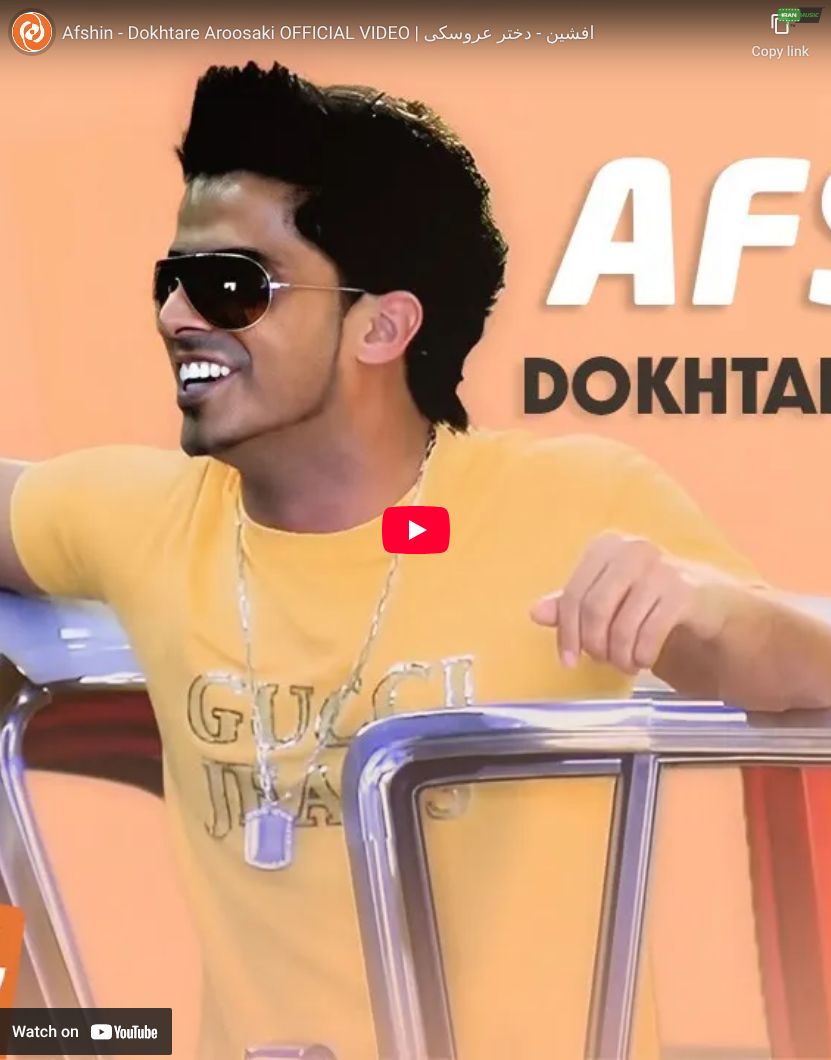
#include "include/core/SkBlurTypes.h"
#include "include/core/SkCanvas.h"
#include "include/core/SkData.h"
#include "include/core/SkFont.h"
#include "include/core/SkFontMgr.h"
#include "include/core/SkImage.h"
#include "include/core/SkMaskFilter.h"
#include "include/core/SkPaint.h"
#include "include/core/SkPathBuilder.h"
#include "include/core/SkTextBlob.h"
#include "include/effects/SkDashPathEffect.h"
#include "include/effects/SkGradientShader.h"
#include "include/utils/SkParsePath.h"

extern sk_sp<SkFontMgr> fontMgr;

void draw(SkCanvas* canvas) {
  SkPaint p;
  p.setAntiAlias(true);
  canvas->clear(SK_ColorWHITE);
  canvas->drawImageRect(SkImages::DeferredFromEncodedData(SkData::MakeFromFileName("images/1.png")), SkRect::MakeLTRB(0, 0, 831, 1060), SkSamplingOptions());
  canvas->drawImageRect(SkImages::DeferredFromEncodedData(SkData::MakeFromFileName("images/2.png")), SkRect::MakeLTRB(777, 6, 825, 27), SkSamplingOptions());
}
